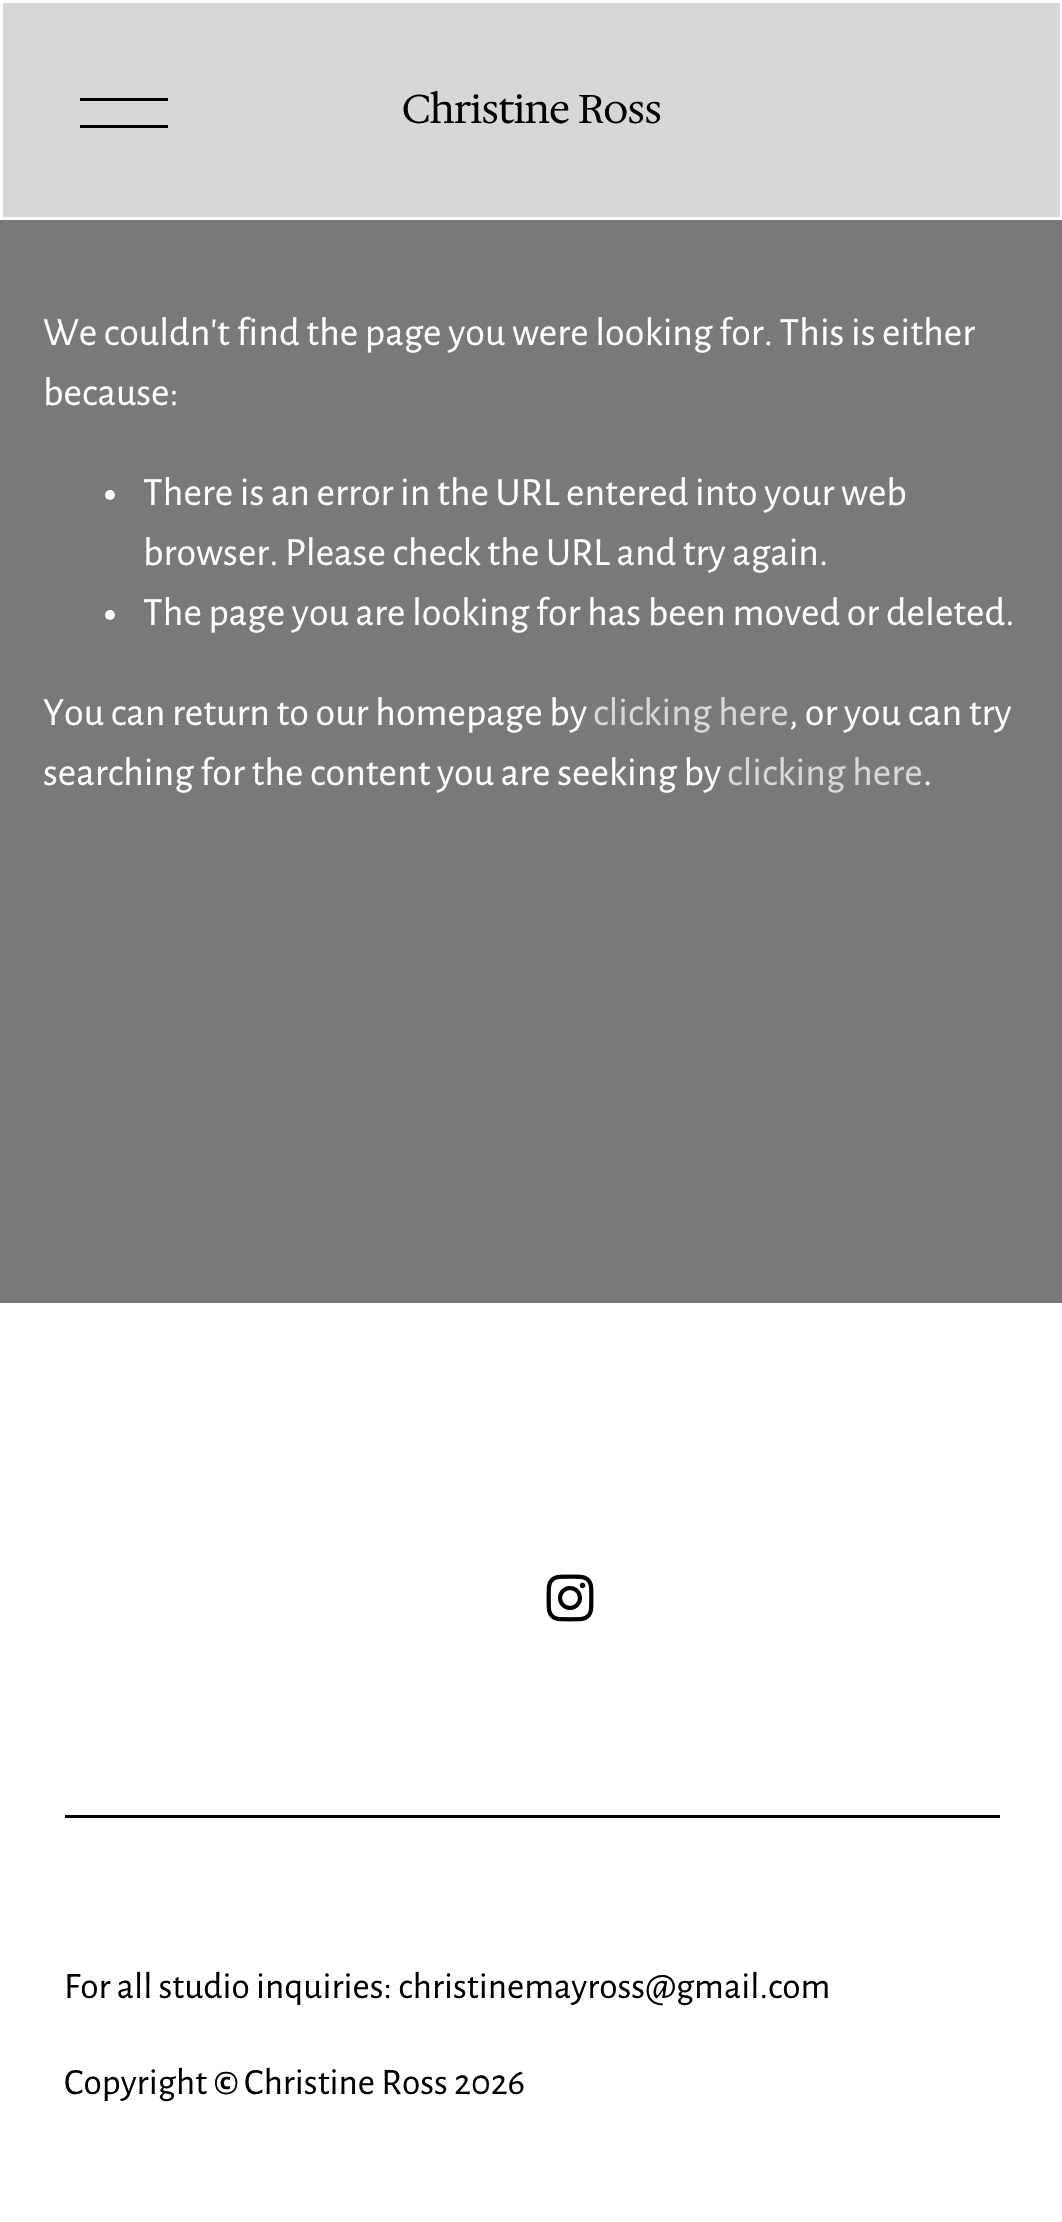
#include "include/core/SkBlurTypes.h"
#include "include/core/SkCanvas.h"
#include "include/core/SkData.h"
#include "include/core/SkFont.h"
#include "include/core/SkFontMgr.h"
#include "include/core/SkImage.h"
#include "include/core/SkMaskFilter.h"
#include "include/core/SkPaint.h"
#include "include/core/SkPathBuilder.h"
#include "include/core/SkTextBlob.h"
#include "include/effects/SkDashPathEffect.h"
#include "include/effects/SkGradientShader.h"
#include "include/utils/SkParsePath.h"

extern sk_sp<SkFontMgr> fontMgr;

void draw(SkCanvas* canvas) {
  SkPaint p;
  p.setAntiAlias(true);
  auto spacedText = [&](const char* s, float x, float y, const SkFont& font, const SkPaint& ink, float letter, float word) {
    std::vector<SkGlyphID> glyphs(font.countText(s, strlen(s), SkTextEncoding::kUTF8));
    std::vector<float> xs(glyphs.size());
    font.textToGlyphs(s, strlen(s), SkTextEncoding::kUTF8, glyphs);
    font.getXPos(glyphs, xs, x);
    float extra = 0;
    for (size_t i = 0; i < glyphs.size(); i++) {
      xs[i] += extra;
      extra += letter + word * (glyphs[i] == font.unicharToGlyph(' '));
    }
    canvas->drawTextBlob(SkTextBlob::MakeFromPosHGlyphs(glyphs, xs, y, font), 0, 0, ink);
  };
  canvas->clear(SkColorSetRGB(121, 121, 121));
  p.setColor(SkColorSetRGB(215, 215, 215));
  canvas->drawRect(SkRect::MakeLTRB(1.5f, 1.5f, 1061.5f, 218.5f), p);
  p.setStyle(SkPaint::kStroke_Style);
  p.setStrokeWidth(3);
  p.setColor(SK_ColorWHITE);
  canvas->drawRect(SkRect::MakeLTRB(1.5f, 1.5f, 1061.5f, 218.5f), p);
  p.setStyle(SkPaint::kFill_Style);
  p.setColor(SK_ColorBLACK);
  canvas->drawRect(SkRect::MakeLTRB(80, 98, 168, 101), p);
  canvas->drawRect(SkRect::MakeLTRB(80, 125, 168, 128), p);
  p.setColor(SK_ColorWHITE);
  canvas->drawCircle(110, 495, 5, p);
  canvas->drawCircle(110, 615, 5, p);
  canvas->drawRect(SkRect::MakeLTRB(0, 1303, 1062, 2222), p);
  canvas->drawImageRect(SkImages::DeferredFromEncodedData(SkData::MakeFromFileName("images/1.png")), SkRect::MakeLTRB(546, 1574, 594, 1622), SkSamplingOptions());
  p.setColor(SK_ColorBLACK);
  canvas->drawRect(SkRect::MakeLTRB(65, 1815, 1000, 1818), p);
  SkFont font1(fontMgr->matchFamilyStyle("Hedvig Letters Serif", SkFontStyle::Normal()), 40);
  font1.setSubpixel(true);
  spacedText("Christine Ross", 402, 123, font1, p, -0.4f, 0);
  SkFont font2(fontMgr->matchFamilyStyle("Alegreya Sans", SkFontStyle::Normal()), 40);
  font2.setSubpixel(true);
  p.setColor(SK_ColorWHITE);
  canvas->drawString("We couldn't find the page you were looking for. This is either", 43, 345, font2, p);
  canvas->drawString("because:", 43, 405, font2, p);
  canvas->drawString("There is an error in the URL entered into your web", 143, 505, font2, p);
  canvas->drawString("browser. Please check the URL and try again.", 143, 565, font2, p);
  canvas->drawString("The page you are looking for has been moved or deleted.", 143, 625, font2, p);
  canvas->drawString("You can return to our homepage by", 43, 725, font2, p);
  p.setColor(SkColorSetRGB(217, 217, 217));
  canvas->drawString("clicking here", 593, 725, font2, p);
  p.setColor(SK_ColorWHITE);
  canvas->drawString(", or you can try", 789, 725, font2, p);
  canvas->drawString("searching for the content you are seeking by", 43, 785, font2, p);
  p.setColor(SkColorSetRGB(217, 217, 217));
  canvas->drawString("clicking here", 727, 785, font2, p);
  p.setColor(SK_ColorWHITE);
  canvas->drawString(".", 923, 785, font2, p);
  SkFont font3(fontMgr->matchFamilyStyle("Alegreya Sans", SkFontStyle::Normal()), 37.3f);
  font3.setSubpixel(true);
  p.setColor(SK_ColorBLACK);
  canvas->drawString("For all studio inquiries: christinemayross@gmail.com", 64, 1998, font3, p);
  canvas->drawString("Copyright", 64, 2094, font3, p);
  SkFont font4(fontMgr->matchFamilyStyle("Alegreya Sans", SkFontStyle::BoldItalic()), 37.3f);
  font4.setSubpixel(true);
  canvas->drawString("©", 213, 2094, font4, p);
  canvas->drawString("Christine Ross 2026", 244, 2094, font3, p);
}
